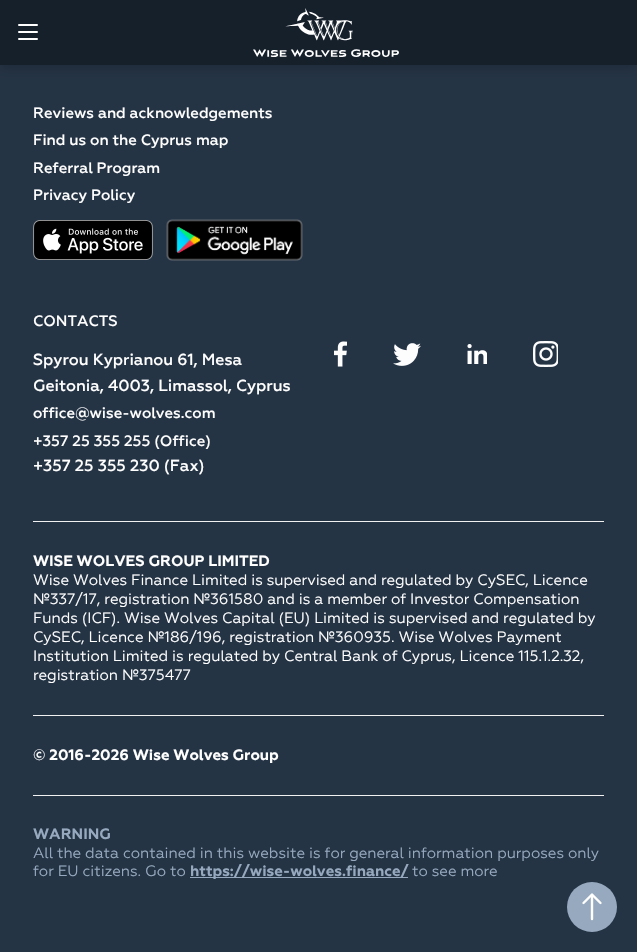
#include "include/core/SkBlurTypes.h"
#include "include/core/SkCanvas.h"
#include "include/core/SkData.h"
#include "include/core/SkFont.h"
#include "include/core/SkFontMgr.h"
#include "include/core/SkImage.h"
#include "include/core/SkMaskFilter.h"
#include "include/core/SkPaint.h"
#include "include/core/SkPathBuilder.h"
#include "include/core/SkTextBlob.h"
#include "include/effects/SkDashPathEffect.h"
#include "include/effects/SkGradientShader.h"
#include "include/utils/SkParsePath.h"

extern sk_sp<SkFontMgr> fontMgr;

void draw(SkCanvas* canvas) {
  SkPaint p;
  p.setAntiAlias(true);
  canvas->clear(SkColorSetRGB(37, 52, 69));
  p.setColor(SkColorSetARGB(41, 0, 0, 0));
  p.setMaskFilter(SkMaskFilter::MakeBlur(kNormal_SkBlurStyle, 5));
  canvas->drawRect(SkRect::MakeLTRB(0, 5, 637, 70), p);
  p.setMaskFilter(nullptr);
  p.setColor(SkColorSetRGB(22, 32, 43));
  canvas->drawRect(SkRect::MakeLTRB(0, 0, 637, 65), p);
  p.setColor(SK_ColorWHITE);
  canvas->drawRoundRect(SkRect::MakeLTRB(18, 31, 38, 33), 1, 1, p);
  canvas->drawRoundRect(SkRect::MakeLTRB(18, 24, 38, 26), 1, 1, p);
  canvas->drawRoundRect(SkRect::MakeLTRB(18, 38, 38, 40), 1, 1, p);
  canvas->drawImageRect(SkImages::DeferredFromEncodedData(SkData::MakeFromFileName("images/1.png")), SkRect::MakeLTRB(253, 8, 399, 57), SkSamplingOptions());
  p.setColor(SkColorSetRGB(241, 241, 241));
  canvas->drawRect(SkRect::MakeLTRB(33, 521, 604, 522), p);
  canvas->drawImageRect(SkImages::DeferredFromEncodedData(SkData::MakeFromFileName("images/2.png")), SkRect::MakeLTRB(33, 220, 153, 260), SkSamplingOptions());
  canvas->drawImageRect(SkImages::DeferredFromEncodedData(SkData::MakeFromFileName("images/3.png")), SkRect::MakeLTRB(166, 219, 303, 261), SkSamplingOptions());
  canvas->drawImageRect(SkImages::DeferredFromEncodedData(SkData::MakeFromFileName("images/4.png")), SkRect::MakeLTRB(334, 341, 347, 367), SkSamplingOptions());
  canvas->drawImageRect(SkImages::DeferredFromEncodedData(SkData::MakeFromFileName("images/5.png")), SkRect::MakeLTRB(393, 343, 421, 366), SkSamplingOptions());
  canvas->drawImageRect(SkImages::DeferredFromEncodedData(SkData::MakeFromFileName("images/6.png")), SkRect::MakeLTRB(467, 344, 487, 364), SkSamplingOptions());
  canvas->drawImageRect(SkImages::DeferredFromEncodedData(SkData::MakeFromFileName("images/7.png")), SkRect::MakeLTRB(533, 341, 558, 367), SkSamplingOptions());
  canvas->drawRect(SkRect::MakeLTRB(33, 715, 604, 716), p);
  canvas->drawRect(SkRect::MakeLTRB(33, 795, 604, 796), p);
  p.setColor(SkColorSetRGB(150, 169, 190));
  canvas->drawRect(SkRect::MakeLTRB(190, 877, 408, 878), p);
  canvas->drawCircle(592, 907, 25, p);
  p.setStyle(SkPaint::kStroke_Style);
  p.setStrokeWidth(2.4f);
  p.setStrokeCap(SkPaint::kRound_Cap);
  p.setStrokeJoin(SkPaint::kRound_Join);
  p.setColor(SK_ColorWHITE);
  canvas->drawPath(SkPathBuilder().moveTo(583.5f, 903).lineTo(592, 894.5f).lineTo(600.5f, 903).detach(), p);
  p.setStrokeJoin(SkPaint::kMiter_Join);
  canvas->drawPath(SkPathBuilder().moveTo(592, 895).lineTo(592, 919).detach(), p);
  SkFont font1(fontMgr->matchFamilyStyle("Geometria", SkFontStyle(500, SkFontStyle::kNormal_Width, SkFontStyle::kUpright_Slant)), 15);
  font1.setSubpixel(true);
  p.setStyle(SkPaint::kFill_Style);
  canvas->drawString("Reviews and acknowledgements", 33, 118, font1, p);
  canvas->drawString("Find us on the Cyprus map", 33, 145, font1, p);
  canvas->drawString("Referral Program", 33, 173, font1, p);
  canvas->drawString("Privacy Policy", 33, 200, font1, p);
  canvas->drawString("CONTACTS", 33, 326, font1, p);
  SkFont font2(fontMgr->matchFamilyStyle("Geometria", SkFontStyle(500, SkFontStyle::kNormal_Width, SkFontStyle::kUpright_Slant)), 16);
  font2.setSubpixel(true);
  canvas->drawString("Spyrou Kyprianou 61, Mesa", 33, 365, font2, p);
  canvas->drawString("Geitonia, 4003, Limassol, Cyprus", 33, 391, font2, p);
  canvas->drawString("office@wise-wolves.com", 33, 418, font1, p);
  canvas->drawString("+357 25 355 255 (Office)", 33, 446, font1, p);
  canvas->drawString("+357 25 355 230 (Fax)", 33, 471, font2, p);
  SkFont font3(fontMgr->matchFamilyStyle("Geometria", SkFontStyle::Bold()), 15);
  font3.setSubpixel(true);
  canvas->drawString("WISE WOLVES GROUP LIMITED", 33, 566, font3, p);
  SkFont font4(fontMgr->matchFamilyStyle("Geometria", SkFontStyle::Normal()), 15);
  font4.setSubpixel(true);
  canvas->drawString("Wise Wolves Finance Limited is supervised and regulated by CySEC, Licence", 33, 585, font4, p);
  canvas->drawString("№337/17, registration №361580 and is a member of Investor Compensation", 33, 604, font4, p);
  canvas->drawString("Funds (ICF). Wise Wolves Capital (EU) Limited is supervised and regulated by", 33, 623, font4, p);
  canvas->drawString("CySEC, Licence №186/196, registration №360935. Wise Wolves Payment", 33, 642, font4, p);
  canvas->drawString("Institution Limited is regulated by Central Bank of Cyprus, Licence 115.1.2.32,", 33, 661, font4, p);
  canvas->drawString("registration №375477", 33, 680, font4, p);
  canvas->drawString("© 2016-2026 Wise Wolves Group", 33, 760, font3, p);
  p.setColor(SkColorSetRGB(150, 169, 190));
  canvas->drawString("WARNING", 33, 839, font3, p);
  canvas->drawString("All the data contained in this website is for general information purposes only", 33, 858, font4, p);
  canvas->drawString("for EU citizens. Go to", 33, 876, font4, p);
  canvas->drawString("https://wise-wolves.finance/", 190, 876, font3, p);
  canvas->drawString("to see more", 412, 876, font4, p);
}
